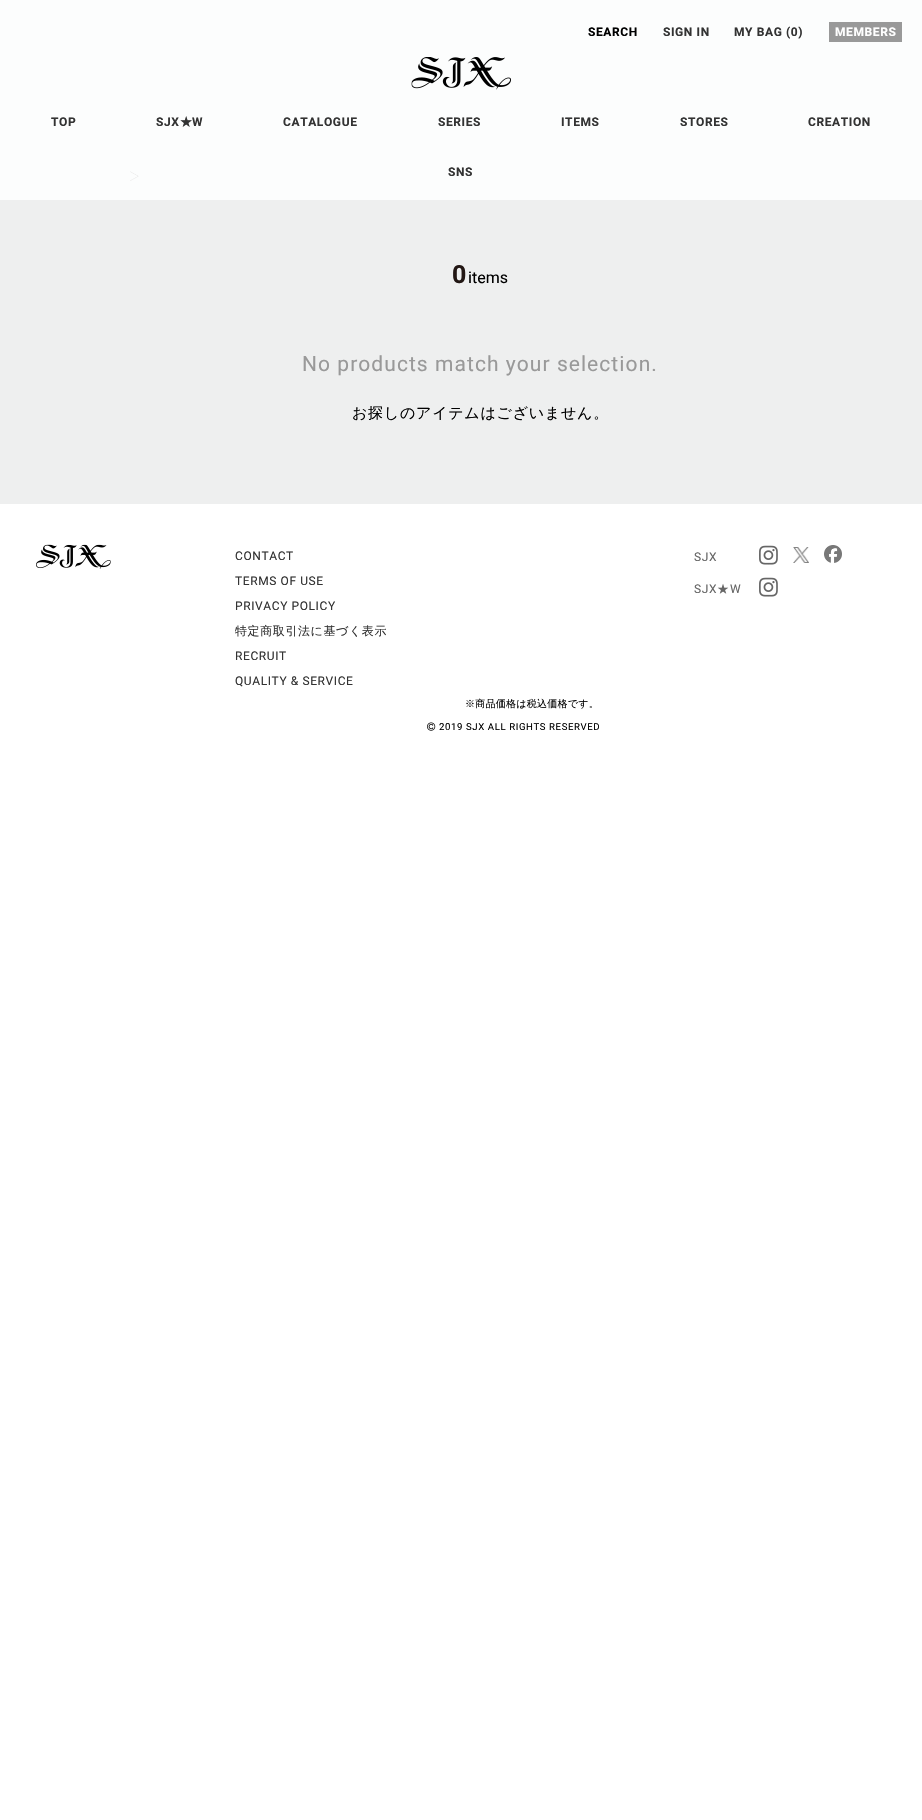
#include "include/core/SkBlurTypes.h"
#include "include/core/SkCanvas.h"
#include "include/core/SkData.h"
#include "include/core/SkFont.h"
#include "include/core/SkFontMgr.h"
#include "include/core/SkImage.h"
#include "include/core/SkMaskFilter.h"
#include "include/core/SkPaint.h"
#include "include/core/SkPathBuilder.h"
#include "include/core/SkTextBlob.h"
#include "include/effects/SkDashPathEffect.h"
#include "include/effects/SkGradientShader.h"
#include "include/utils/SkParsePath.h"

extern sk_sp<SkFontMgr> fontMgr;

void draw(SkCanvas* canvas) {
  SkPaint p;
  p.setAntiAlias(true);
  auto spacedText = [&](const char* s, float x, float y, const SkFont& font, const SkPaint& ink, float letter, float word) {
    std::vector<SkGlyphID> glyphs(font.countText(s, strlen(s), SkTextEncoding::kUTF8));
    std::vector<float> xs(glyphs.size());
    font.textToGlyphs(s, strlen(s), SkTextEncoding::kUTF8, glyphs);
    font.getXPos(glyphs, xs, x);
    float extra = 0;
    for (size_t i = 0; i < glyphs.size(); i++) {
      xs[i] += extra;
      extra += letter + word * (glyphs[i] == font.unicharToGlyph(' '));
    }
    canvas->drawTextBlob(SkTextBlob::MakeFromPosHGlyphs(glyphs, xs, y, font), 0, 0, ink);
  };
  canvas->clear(SK_ColorWHITE);
  p.setColor(SkColorSetRGB(238, 239, 239));
  canvas->drawRect(SkRect::MakeLTRB(0, 200, 922, 504), p);
  p.setColor(SkColorSetRGB(252, 253, 253));
  canvas->drawRect(SkRect::MakeLTRB(0, 0, 922, 200), p);
  p.setColor(SkColorSetRGB(153, 153, 153));
  canvas->drawRect(SkRect::MakeLTRB(829, 22, 902, 42), p);
  canvas->drawImageRect(SkImages::DeferredFromEncodedData(SkData::MakeFromFileName("images/1.png")), SkRect::MakeLTRB(411, 57, 511, 90), SkSamplingOptions());
  canvas->drawImageRect(SkImages::DeferredFromEncodedData(SkData::MakeFromFileName("images/2.png")), SkRect::MakeLTRB(130, 171, 139, 181), SkSamplingOptions());
  canvas->drawImageRect(SkImages::DeferredFromEncodedData(SkData::MakeFromFileName("images/3.png")), SkRect::MakeLTRB(36, 544, 111, 569), SkSamplingOptions());
  canvas->drawImageRect(SkImages::DeferredFromEncodedData(SkData::MakeFromFileName("images/4.png")), SkRect::MakeLTRB(759, 545, 778, 565), SkSamplingOptions());
  canvas->drawImageRect(SkImages::DeferredFromEncodedData(SkData::MakeFromFileName("images/5.png")), SkRect::MakeLTRB(793, 547, 809, 563), SkSamplingOptions());
  canvas->drawImageRect(SkImages::DeferredFromEncodedData(SkData::MakeFromFileName("images/6.png")), SkRect::MakeLTRB(824, 545, 842, 563), SkSamplingOptions());
  canvas->drawImageRect(SkImages::DeferredFromEncodedData(SkData::MakeFromFileName("images/4.png")), SkRect::MakeLTRB(759, 577, 778, 597), SkSamplingOptions());
  canvas->drawImageRect(SkImages::DeferredFromEncodedData(SkData::MakeFromFileName("images/7.png")), SkRect::MakeLTRB(427, 722, 436, 731), SkSamplingOptions());
  SkFont font1(fontMgr->matchFamilyStyle("Heebo", SkFontStyle::Bold()), 12);
  font1.setSubpixel(true);
  p.setColor(SK_ColorBLACK);
  spacedText("SEARCH", 588, 36, font1, p, 0.6f, 0);
  p.setColor(SkColorSetRGB(51, 51, 51));
  spacedText("SIGN IN", 663, 36, font1, p, 0.6f, 0);
  spacedText("MY BAG (0)", 734, 36, font1, p, 0.6f, 0);
  p.setColor(SK_ColorWHITE);
  spacedText("MEMBERS", 835, 36, font1, p, 0.6f, 0);
  p.setColor(SkColorSetRGB(51, 51, 51));
  spacedText("TOP", 51, 126, font1, p, 0.6f, 0);
  spacedText("SJX", 156, 126, font1, p, 0.6f, 0);
  SkFont font2(fontMgr->matchFamilyStyle("WenQuanYi Zen Hei", SkFontStyle::Bold()), 12);
  font2.setSubpixel(true);
  spacedText("★", 180, 126, font2, p, 0.6f, 0);
  spacedText("W", 192, 126, font1, p, 0.6f, 0);
  spacedText("CATALOGUE", 283, 126, font1, p, 0.6f, 0);
  spacedText("SERIES", 438, 126, font1, p, 0.6f, 0);
  spacedText("ITEMS", 561, 126, font1, p, 0.6f, 0);
  spacedText("STORES", 680, 126, font1, p, 0.6f, 0);
  spacedText("CREATION", 808, 126, font1, p, 0.6f, 0);
  spacedText("SNS", 448, 176, font1, p, 0.6f, 0);
  SkFont font3(fontMgr->matchFamilyStyle("Heebo", SkFontStyle::Bold()), 25);
  font3.setSubpixel(true);
  p.setColor(SkColorSetRGB(34, 23, 20));
  spacedText("0", 452, 283, font3, p, 1, 0);
  SkFont font4(fontMgr->matchFamilyStyle("Heebo", SkFontStyle::Normal()), 16);
  font4.setSubpixel(true);
  p.setColor(SK_ColorBLACK);
  canvas->drawString("items", 468, 283, font4, p);
  SkFont font5(fontMgr->matchFamilyStyle("Heebo", SkFontStyle::Normal()), 21);
  font5.setSubpixel(true);
  p.setColor(SkColorSetRGB(153, 153, 153));
  spacedText("No products match your selection.", 302, 371, font5, p, 1.05f, 0);
  SkFont font6(fontMgr->matchFamilyStyle("WenQuanYi Zen Hei", SkFontStyle(500, SkFontStyle::kNormal_Width, SkFontStyle::kUpright_Slant)), 15);
  font6.setSubpixel(true);
  p.setColor(SK_ColorBLACK);
  spacedText("お探しのアイテムはございません。", 352, 418, font6, p, 0.75f, 0);
  SkFont font7(fontMgr->matchFamilyStyle("Heebo", SkFontStyle::Normal()), 12);
  font7.setSubpixel(true);
  p.setColor(SkColorSetRGB(51, 51, 51));
  spacedText("CONTACT", 235, 560, font7, p, 0.6f, 0);
  spacedText("TERMS OF USE", 235, 585, font7, p, 0.6f, 0);
  spacedText("PRIVACY POLICY", 235, 610, font7, p, 0.6f, 0);
  SkFont font8(fontMgr->matchFamilyStyle("WenQuanYi Zen Hei", SkFontStyle(500, SkFontStyle::kNormal_Width, SkFontStyle::kUpright_Slant)), 12);
  font8.setSubpixel(true);
  spacedText("特定商取引法に基づく表示", 235, 635, font8, p, 0.6f, 0);
  spacedText("RECRUIT", 235, 660, font7, p, 0.6f, 0);
  spacedText("QUALITY & SERVICE", 235, 685, font7, p, 0.6f, 0);
  p.setColor(SkColorSetRGB(102, 102, 102));
  spacedText("SJX", 694, 561, font7, p, 0.6f, 0);
  spacedText("SJX", 694, 593, font7, p, 0.6f, 0);
  spacedText("★", 717, 593, font8, p, 0.6f, 0);
  spacedText("W", 730, 593, font7, p, 0.6f, 0);
  SkFont font9(fontMgr->matchFamilyStyle("WenQuanYi Zen Hei", SkFontStyle(500, SkFontStyle::kNormal_Width, SkFontStyle::kUpright_Slant)), 10);
  font9.setSubpixel(true);
  p.setColor(SK_ColorBLACK);
  spacedText("※商品価格は税込価格です。", 465, 707, font9, p, 0.25f, 0);
  SkFont font10(fontMgr->matchFamilyStyle("Heebo", SkFontStyle::Normal()), 9.6f);
  font10.setSubpixel(true);
  spacedText("2019 SJX ALL RIGHTS RESERVED", 439, 730, font10, p, 0.6f, 0);
}
